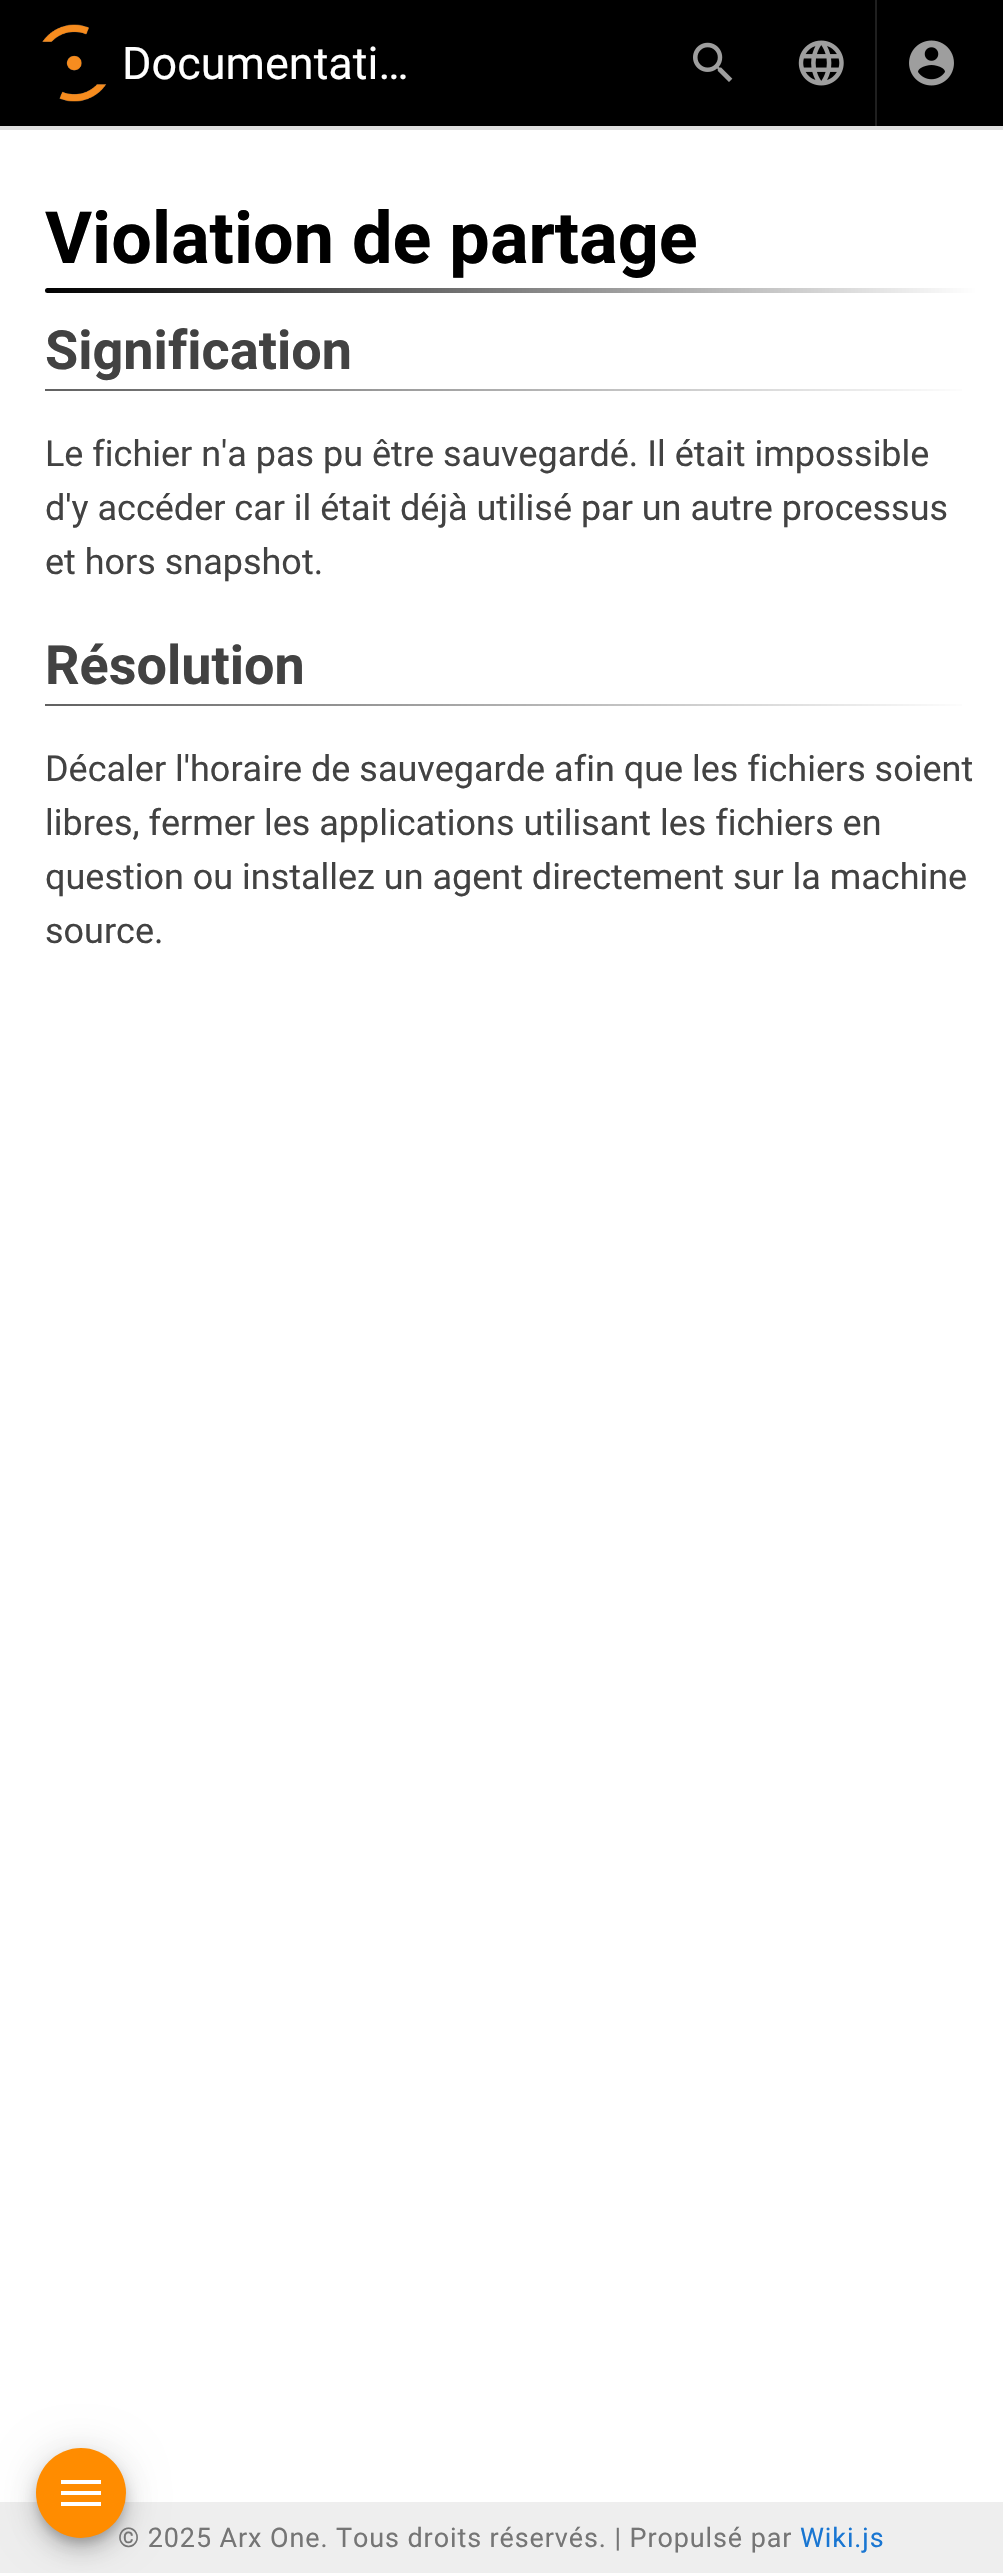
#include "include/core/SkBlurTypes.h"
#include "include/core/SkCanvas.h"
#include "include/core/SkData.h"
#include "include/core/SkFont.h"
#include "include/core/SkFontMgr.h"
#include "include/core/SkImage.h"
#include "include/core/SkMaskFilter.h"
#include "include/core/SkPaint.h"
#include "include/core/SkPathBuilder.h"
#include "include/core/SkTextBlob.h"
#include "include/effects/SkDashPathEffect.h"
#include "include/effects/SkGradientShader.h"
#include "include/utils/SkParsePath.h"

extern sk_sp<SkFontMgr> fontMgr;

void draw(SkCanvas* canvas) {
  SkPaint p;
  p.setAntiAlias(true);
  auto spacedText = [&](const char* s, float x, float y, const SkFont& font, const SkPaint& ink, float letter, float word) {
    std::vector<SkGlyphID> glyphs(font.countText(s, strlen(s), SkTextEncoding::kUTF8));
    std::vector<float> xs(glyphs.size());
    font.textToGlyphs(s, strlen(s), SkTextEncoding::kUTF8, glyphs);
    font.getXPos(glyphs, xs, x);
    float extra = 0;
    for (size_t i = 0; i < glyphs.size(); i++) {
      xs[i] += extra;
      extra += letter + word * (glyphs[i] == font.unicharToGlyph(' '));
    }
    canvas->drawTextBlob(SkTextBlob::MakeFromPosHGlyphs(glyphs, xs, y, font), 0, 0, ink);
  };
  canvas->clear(SK_ColorWHITE);
  p.setColor(SK_ColorBLACK);
  canvas->drawRect(SkRect::MakeLTRB(0, 0, 1003, 126), p);
  canvas->drawImageRect(SkImages::DeferredFromEncodedData(SkData::MakeFromFileName("images/1.png")), SkRect::MakeLTRB(42, 24, 107, 102), SkSamplingOptions());
  canvas->drawImageRect(SkImages::DeferredFromEncodedData(SkData::MakeFromFileName("images/2.png")), SkRect::MakeLTRB(693, 42, 733, 82), SkSamplingOptions());
  canvas->drawImageRect(SkImages::DeferredFromEncodedData(SkData::MakeFromFileName("images/3.png")), SkRect::MakeLTRB(798, 40, 844, 86), SkSamplingOptions());
  p.setColor(SkColorSetRGB(31, 31, 31));
  canvas->drawRect(SkRect::MakeLTRB(875, 0, 877, 126), p);
  canvas->drawImageRect(SkImages::DeferredFromEncodedData(SkData::MakeFromFileName("images/4.png")), SkRect::MakeLTRB(909, 40, 954, 86), SkSamplingOptions());
  p.setColor(SkColorSetRGB(224, 224, 224));
  canvas->drawRect(SkRect::MakeLTRB(0, 126, 1003, 130), p);
  {
    const SkColor colors[] = {SK_ColorBLACK, SK_ColorWHITE};
    const float stops[] = {0, 1};
    const SkPoint ends[] = {{45, 290}, {977, 290}};
    p.setShader(SkGradientShader::MakeLinear(ends, colors, stops, 2, SkTileMode::kClamp));
    p.setAlpha(255);
  }
  canvas->drawRoundRect(SkRect::MakeLTRB(45, 288, 977, 293), 2.5f, 2.5f, p);
  {
    const SkColor colors[] = {SkColorSetRGB(97, 97, 97), SK_ColorWHITE};
    const float stops[] = {0, 1};
    const SkPoint ends[] = {{45, 390}, {977, 390}};
    p.setShader(SkGradientShader::MakeLinear(ends, colors, stops, 2, SkTileMode::kClamp));
    p.setAlpha(255);
  }
  canvas->drawRect(SkRect::MakeLTRB(45, 389, 962, 391), p);
  {
    const SkColor colors[] = {SkColorSetRGB(97, 97, 97), SK_ColorWHITE};
    const float stops[] = {0, 1};
    const SkPoint ends[] = {{45, 705}, {977, 705}};
    p.setShader(SkGradientShader::MakeLinear(ends, colors, stops, 2, SkTileMode::kClamp));
    p.setAlpha(255);
  }
  canvas->drawRect(SkRect::MakeLTRB(45, 704, 962, 706), p);
  p.setShader(nullptr);
  p.setColor(SkColorSetRGB(238, 238, 238));
  canvas->drawRect(SkRect::MakeLTRB(0, 2502, 1003, 2573), p);
  p.setColor(SkColorSetARGB(31, 0, 0, 0));
  p.setMaskFilter(SkMaskFilter::MakeBlur(kNormal_SkBlurStyle, 20));
  canvas->drawRoundRect(SkRect::MakeLTRB(36, 2450, 126, 2540), 45, 45, p);
  p.setMaskFilter(nullptr);
  p.setColor(SkColorSetARGB(36, 0, 0, 0));
  p.setMaskFilter(SkMaskFilter::MakeBlur(kNormal_SkBlurStyle, 11));
  canvas->drawRoundRect(SkRect::MakeLTRB(36, 2462, 126, 2552), 45, 45, p);
  p.setMaskFilter(nullptr);
  p.setColor(SkColorSetARGB(51, 0, 0, 0));
  p.setMaskFilter(SkMaskFilter::MakeBlur(kNormal_SkBlurStyle, 5.5f));
  canvas->drawRoundRect(SkRect::MakeLTRB(38, 2457, 124, 2543), 43, 43, p);
  p.setMaskFilter(nullptr);
  SkFont font1(fontMgr->matchFamilyStyle("Roboto", SkFontStyle::Normal()), 45);
  font1.setSubpixel(true);
  p.setColor(SK_ColorWHITE);
  canvas->drawString("Documentati…", 122, 79, font1, p);
  SkFont font2(fontMgr->matchFamilyStyle("Roboto", SkFontStyle::Bold()), 72);
  font2.setSubpixel(true);
  p.setColor(SK_ColorBLACK);
  canvas->drawString("Violation de partage", 45, 263, font2, p);
  SkFont font3(fontMgr->matchFamilyStyle("Roboto", SkFontStyle::Bold()), 54);
  font3.setSubpixel(true);
  p.setColor(SkColorSetRGB(66, 66, 66));
  canvas->drawString("Signification", 45, 369, font3, p);
  SkFont font4(fontMgr->matchFamilyStyle("Roboto", SkFontStyle::Normal()), 36);
  font4.setSubpixel(true);
  canvas->drawString("Le fichier n'a pas pu être sauvegardé. Il était impossible", 45, 466, font4, p);
  canvas->drawString("d'y accéder car il était déjà utilisé par un autre processus", 45, 520, font4, p);
  canvas->drawString("et hors snapshot.", 45, 574, font4, p);
  canvas->drawString("Résolution", 45, 684, font3, p);
  canvas->drawString("Décaler l'horaire de sauvegarde afin que les fichiers soient", 45, 781, font4, p);
  canvas->drawString("libres, fermer les applications utilisant les fichiers en", 45, 835, font4, p);
  canvas->drawString("question ou installez un agent directement sur la machine", 45, 889, font4, p);
  canvas->drawString("source.", 45, 943, font4, p);
  SkFont font5(fontMgr->matchFamilyStyle("Roboto", SkFontStyle::Normal()), 27);
  font5.setSubpixel(true);
  p.setColor(SkColorSetRGB(117, 117, 117));
  spacedText("© 2025 Arx One. Tous droits réservés. | Propulsé par", 118, 2547, font5, p, 0.9f, 0);
  p.setColor(SkColorSetRGB(255, 140, 0));
  canvas->drawCircle(81, 2493, 45, p);
  p.setColor(SK_ColorWHITE);
  canvas->drawPath(SkPathBuilder().moveTo(61, 2480).lineTo(101, 2480).lineTo(101, 2484).lineTo(61, 2484).close().moveTo(61, 2491).lineTo(101, 2491).lineTo(101, 2495).lineTo(61, 2495).close().moveTo(61, 2502).lineTo(101, 2502).lineTo(101, 2506).lineTo(61, 2506).close().detach(), p);
  p.setColor(SkColorSetRGB(25, 118, 210));
  spacedText("Wiki.js", 800, 2547, font5, p, 0.9f, 0);
}
